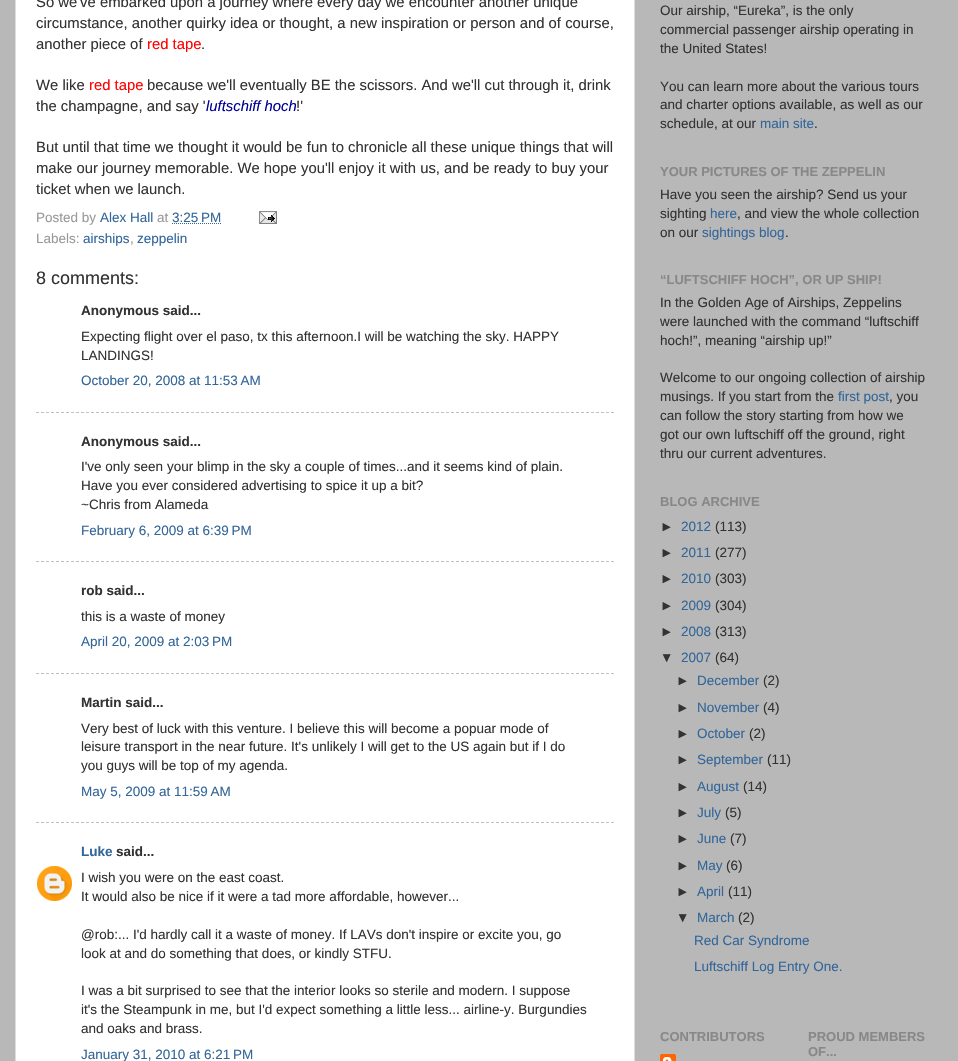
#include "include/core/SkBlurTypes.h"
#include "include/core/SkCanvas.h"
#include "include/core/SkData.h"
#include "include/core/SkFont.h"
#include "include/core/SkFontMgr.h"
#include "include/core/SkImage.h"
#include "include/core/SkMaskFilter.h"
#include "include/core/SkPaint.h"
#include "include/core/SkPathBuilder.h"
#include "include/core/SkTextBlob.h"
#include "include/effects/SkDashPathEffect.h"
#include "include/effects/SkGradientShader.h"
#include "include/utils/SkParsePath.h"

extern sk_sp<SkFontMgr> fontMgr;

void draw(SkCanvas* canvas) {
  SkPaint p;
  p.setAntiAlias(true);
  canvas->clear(SkColorSetRGB(184, 184, 184));
  p.setColor(SK_ColorWHITE);
  canvas->drawRect(SkRect::MakeLTRB(15.5f, -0.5f, 634.5f, 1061.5f), p);
  p.setStyle(SkPaint::kStroke_Style);
  p.setStrokeWidth(1);
  p.setColor(SkColorSetRGB(221, 221, 221));
  canvas->drawRect(SkRect::MakeLTRB(15.5f, -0.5f, 634.5f, 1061.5f), p);
  p.setColor(SkColorSetRGB(51, 102, 153));
  p.setPathEffect(SkDashPathEffect::Make({{1, 1}}, 0));
  canvas->drawPath(SkPathBuilder().moveTo(172, 223.5f).lineTo(221, 223.5f).detach(), p);
  p.setPathEffect(nullptr);
  canvas->drawImageRect(SkImages::DeferredFromEncodedData(SkData::MakeFromFileName("images/1.png")), SkRect::MakeLTRB(259, 211, 277, 224), SkSamplingOptions());
  p.setColor(SkColorSetRGB(192, 192, 192));
  p.setPathEffect(SkDashPathEffect::Make({{3, 2}}, 0));
  canvas->drawPath(SkPathBuilder().moveTo(36, 412.5f).lineTo(614, 412.5f).detach(), p);
  p.setPathEffect(nullptr);
  p.setPathEffect(SkDashPathEffect::Make({{3, 2}}, 0));
  canvas->drawPath(SkPathBuilder().moveTo(36, 561.5f).lineTo(614, 561.5f).detach(), p);
  p.setPathEffect(nullptr);
  p.setPathEffect(SkDashPathEffect::Make({{3, 2}}, 0));
  canvas->drawPath(SkPathBuilder().moveTo(36, 673.5f).lineTo(614, 673.5f).detach(), p);
  p.setPathEffect(nullptr);
  p.setPathEffect(SkDashPathEffect::Make({{3, 2}}, 0));
  canvas->drawPath(SkPathBuilder().moveTo(36, 822.5f).lineTo(614, 822.5f).detach(), p);
  p.setPathEffect(nullptr);
  canvas->drawImageRect(SkImages::DeferredFromEncodedData(SkData::MakeFromFileName("images/2.png")), SkRect::MakeLTRB(37, 866, 72, 901), SkSamplingOptions());
  canvas->drawImageRect(SkImages::DeferredFromEncodedData(SkData::MakeFromFileName("images/3.png")), SkRect::MakeLTRB(660, 1054, 676, 1061), SkSamplingOptions());
  SkFont font1(fontMgr->matchFamilyStyle("Liberation Sans", SkFontStyle::Normal()), 14.85f);
  font1.setSubpixel(true);
  p.setStyle(SkPaint::kFill_Style);
  p.setColor(SkColorSetRGB(51, 51, 51));
  canvas->drawString("So we've embarked upon a journey where every day we encounter another unique", 36, 7, font1, p);
  canvas->drawString("circumstance, another quirky idea or thought, a new inspiration or person and of course,", 36, 28, font1, p);
  canvas->drawString("another piece of", 36, 49, font1, p);
  p.setColor(SkColorSetRGB(255, 0, 0));
  canvas->drawString("red tape", 147, 49, font1, p);
  p.setColor(SkColorSetRGB(51, 51, 51));
  canvas->drawString(".", 201, 49, font1, p);
  canvas->drawString("We like", 36, 90, font1, p);
  p.setColor(SkColorSetRGB(255, 0, 0));
  canvas->drawString("red tape", 89, 90, font1, p);
  p.setColor(SkColorSetRGB(51, 51, 51));
  canvas->drawString("because we'll eventually BE the scissors. And we'll cut through it, drink", 147, 90, font1, p);
  canvas->drawString("the champagne, and say '", 36, 111, font1, p);
  SkFont font2(fontMgr->matchFamilyStyle("Liberation Sans", SkFontStyle::Italic()), 14.85f);
  font2.setSubpixel(true);
  p.setColor(SkColorSetRGB(0, 0, 153));
  canvas->drawString("luftschiff hoch", 206, 111, font2, p);
  p.setColor(SkColorSetRGB(51, 51, 51));
  canvas->drawString("!'", 296, 111, font1, p);
  canvas->drawString("But until that time we thought it would be fun to chronicle all these unique things that will", 36, 152, font1, p);
  canvas->drawString("make our journey memorable. We hope you'll enjoy it with us, and be ready to buy your", 36, 173, font1, p);
  canvas->drawString("ticket when we launch.", 36, 194, font1, p);
  SkFont font3(fontMgr->matchFamilyStyle("Liberation Sans", SkFontStyle::Normal()), 13.5f);
  font3.setSubpixel(true);
  p.setColor(SkColorSetRGB(153, 153, 153));
  canvas->drawString("Posted by", 36, 222, font3, p);
  p.setColor(SkColorSetRGB(51, 102, 153));
  canvas->drawString("Alex Hall", 100, 222, font3, p);
  p.setColor(SkColorSetRGB(153, 153, 153));
  canvas->drawString("at", 157, 222, font3, p);
  p.setColor(SkColorSetRGB(51, 102, 153));
  canvas->drawString("3:25 PM", 172, 222, font3, p);
  p.setColor(SkColorSetRGB(153, 153, 153));
  canvas->drawString("Labels:", 36, 243, font3, p);
  p.setColor(SkColorSetRGB(51, 102, 153));
  canvas->drawString("airships", 83, 243, font3, p);
  p.setColor(SkColorSetRGB(153, 153, 153));
  canvas->drawString(",", 130, 243, font3, p);
  p.setColor(SkColorSetRGB(51, 102, 153));
  canvas->drawString("zeppelin", 137, 243, font3, p);
  SkFont font4(fontMgr->matchFamilyStyle("Liberation Sans", SkFontStyle::Normal()), 18);
  font4.setSubpixel(true);
  p.setColor(SkColorSetRGB(51, 51, 51));
  canvas->drawString("8 comments:", 36, 284, font4, p);
  SkFont font5(fontMgr->matchFamilyStyle("Liberation Sans", SkFontStyle::Bold()), 13.5f);
  font5.setSubpixel(true);
  canvas->drawString("Anonymous said...", 81, 315, font5, p);
  canvas->drawString("Expecting flight over el paso, tx this afternoon.I will be watching the sky. HAPPY", 81, 341, font3, p);
  canvas->drawString("LANDINGS!", 81, 360, font3, p);
  p.setColor(SkColorSetRGB(51, 102, 153));
  canvas->drawString("October 20, 2008 at 11:53 AM", 81, 385, font3, p);
  p.setColor(SkColorSetRGB(51, 51, 51));
  canvas->drawString("Anonymous said...", 81, 446, font5, p);
  canvas->drawString("I've only seen your blimp in the sky a couple of times...and it seems kind of plain.", 81, 471, font3, p);
  canvas->drawString("Have you ever considered advertising to spice it up a bit?", 81, 490, font3, p);
  canvas->drawString("~Chris from Alameda", 81, 509, font3, p);
  p.setColor(SkColorSetRGB(51, 102, 153));
  canvas->drawString("February 6, 2009 at 6:39 PM", 81, 535, font3, p);
  p.setColor(SkColorSetRGB(51, 51, 51));
  canvas->drawString("rob said...", 81, 595, font5, p);
  canvas->drawString("this is a waste of money", 81, 621, font3, p);
  p.setColor(SkColorSetRGB(51, 102, 153));
  canvas->drawString("April 20, 2009 at 2:03 PM", 81, 646, font3, p);
  p.setColor(SkColorSetRGB(51, 51, 51));
  canvas->drawString("Martin said...", 81, 707, font5, p);
  canvas->drawString("Very best of luck with this venture. I believe this will become a popuar mode of", 81, 733, font3, p);
  canvas->drawString("leisure transport in the near future. It's unlikely I will get to the US again but if I do", 81, 751, font3, p);
  canvas->drawString("you guys will be top of my agenda.", 81, 770, font3, p);
  p.setColor(SkColorSetRGB(51, 102, 153));
  canvas->drawString("May 5, 2009 at 11:59 AM", 81, 796, font3, p);
  canvas->drawString("Luke", 81, 856, font5, p);
  p.setColor(SkColorSetRGB(51, 51, 51));
  canvas->drawString("said...", 116, 856, font5, p);
  canvas->drawString("I wish you were on the east coast.", 81, 882, font3, p);
  canvas->drawString("It would also be nice if it were a tad more affordable, however...", 81, 901, font3, p);
  canvas->drawString("@rob:... I'd hardly call it a waste of money. If LAVs don't inspire or excite you, go", 81, 939, font3, p);
  canvas->drawString("look at and do something that does, or kindly STFU.", 81, 958, font3, p);
  canvas->drawString("I was a bit surprised to see that the interior looks so sterile and modern. I suppose", 81, 995, font3, p);
  canvas->drawString("it's the Steampunk in me, but I'd expect something a little less... airline-y. Burgundies", 81, 1014, font3, p);
  canvas->drawString("and oaks and brass.", 81, 1033, font3, p);
  p.setColor(SkColorSetRGB(51, 102, 153));
  canvas->drawString("January 31, 2010 at 6:21 PM", 81, 1059, font3, p);
  p.setColor(SkColorSetRGB(51, 51, 51));
  canvas->drawString("Our airship, “Eureka”, is the only", 660, 15, font3, p);
  canvas->drawString("commercial passenger airship operating in", 660, 34, font3, p);
  canvas->drawString("the United States!", 660, 53, font3, p);
  canvas->drawString("You can learn more about the various tours", 660, 91, font3, p);
  canvas->drawString("and charter options available, as well as our", 660, 109, font3, p);
  canvas->drawString("schedule, at our", 660, 128, font3, p);
  p.setColor(SkColorSetRGB(51, 102, 153));
  canvas->drawString("main site", 760, 128, font3, p);
  p.setColor(SkColorSetRGB(51, 51, 51));
  canvas->drawString(".", 814, 128, font3, p);
  SkFont font6(fontMgr->matchFamilyStyle("Liberation Sans", SkFontStyle::Bold()), 13);
  font6.setSubpixel(true);
  p.setColor(SkColorSetRGB(136, 136, 136));
  canvas->drawString("YOUR PICTURES OF THE ZEPPELIN", 660, 176, font6, p);
  p.setColor(SkColorSetRGB(51, 51, 51));
  canvas->drawString("Have you seen the airship? Send us your", 660, 199, font3, p);
  canvas->drawString("sighting", 660, 218, font3, p);
  p.setColor(SkColorSetRGB(51, 102, 153));
  canvas->drawString("here", 710, 218, font3, p);
  p.setColor(SkColorSetRGB(51, 51, 51));
  canvas->drawString(", and view the whole collection", 737, 218, font3, p);
  canvas->drawString("on our", 660, 237, font3, p);
  p.setColor(SkColorSetRGB(51, 102, 153));
  canvas->drawString("sightings blog", 702, 237, font3, p);
  p.setColor(SkColorSetRGB(51, 51, 51));
  canvas->drawString(".", 785, 237, font3, p);
  p.setColor(SkColorSetRGB(136, 136, 136));
  canvas->drawString("“LUFTSCHIFF HOCH”, OR UP SHIP!", 660, 284, font6, p);
  p.setColor(SkColorSetRGB(51, 51, 51));
  canvas->drawString("In the Golden Age of Airships, Zeppelins", 660, 307, font3, p);
  canvas->drawString("were launched with the command “luftschiff", 660, 326, font3, p);
  canvas->drawString("hoch!”, meaning “airship up!”", 660, 345, font3, p);
  canvas->drawString("Welcome to our ongoing collection of airship", 660, 382, font3, p);
  canvas->drawString("musings. If you start from the", 660, 401, font3, p);
  p.setColor(SkColorSetRGB(51, 102, 153));
  canvas->drawString("first post", 838, 401, font3, p);
  p.setColor(SkColorSetRGB(51, 51, 51));
  canvas->drawString(", you", 889, 401, font3, p);
  canvas->drawString("can follow the story starting from how we", 660, 420, font3, p);
  canvas->drawString("got our own luftschiff off the ground, right", 660, 439, font3, p);
  canvas->drawString("thru our current adventures.", 660, 458, font3, p);
  p.setColor(SkColorSetRGB(136, 136, 136));
  canvas->drawString("BLOG ARCHIVE", 660, 506, font6, p);
  p.setColor(SkColorSetRGB(51, 51, 51));
  canvas->drawString("►", 660, 531, font3, p);
  p.setColor(SkColorSetRGB(51, 102, 153));
  canvas->drawString("2012", 681, 531, font3, p);
  p.setColor(SkColorSetRGB(51, 51, 51));
  canvas->drawString("(113)", 715, 531, font3, p);
  canvas->drawString("►", 660, 557, font3, p);
  p.setColor(SkColorSetRGB(51, 102, 153));
  canvas->drawString("2011", 681, 557, font3, p);
  p.setColor(SkColorSetRGB(51, 51, 51));
  canvas->drawString("(277)", 715, 557, font3, p);
  canvas->drawString("►", 660, 583, font3, p);
  p.setColor(SkColorSetRGB(51, 102, 153));
  canvas->drawString("2010", 681, 583, font3, p);
  p.setColor(SkColorSetRGB(51, 51, 51));
  canvas->drawString("(303)", 715, 583, font3, p);
  canvas->drawString("►", 660, 610, font3, p);
  p.setColor(SkColorSetRGB(51, 102, 153));
  canvas->drawString("2009", 681, 610, font3, p);
  p.setColor(SkColorSetRGB(51, 51, 51));
  canvas->drawString("(304)", 715, 610, font3, p);
  canvas->drawString("►", 660, 636, font3, p);
  p.setColor(SkColorSetRGB(51, 102, 153));
  canvas->drawString("2008", 681, 636, font3, p);
  p.setColor(SkColorSetRGB(51, 51, 51));
  canvas->drawString("(313)", 715, 636, font3, p);
  canvas->drawString("▼", 660, 662, font3, p);
  p.setColor(SkColorSetRGB(51, 102, 153));
  canvas->drawString("2007", 681, 662, font3, p);
  p.setColor(SkColorSetRGB(51, 51, 51));
  canvas->drawString("(64)", 715, 662, font3, p);
  canvas->drawString("►", 676, 685, font3, p);
  p.setColor(SkColorSetRGB(51, 102, 153));
  canvas->drawString("December", 697, 685, font3, p);
  p.setColor(SkColorSetRGB(51, 51, 51));
  canvas->drawString("(2)", 763, 685, font3, p);
  canvas->drawString("►", 676, 712, font3, p);
  p.setColor(SkColorSetRGB(51, 102, 153));
  canvas->drawString("November", 697, 712, font3, p);
  p.setColor(SkColorSetRGB(51, 51, 51));
  canvas->drawString("(4)", 763, 712, font3, p);
  canvas->drawString("►", 676, 738, font3, p);
  p.setColor(SkColorSetRGB(51, 102, 153));
  canvas->drawString("October", 697, 738, font3, p);
  p.setColor(SkColorSetRGB(51, 51, 51));
  canvas->drawString("(2)", 749, 738, font3, p);
  canvas->drawString("►", 676, 764, font3, p);
  p.setColor(SkColorSetRGB(51, 102, 153));
  canvas->drawString("September", 697, 764, font3, p);
  p.setColor(SkColorSetRGB(51, 51, 51));
  canvas->drawString("(11)", 767, 764, font3, p);
  canvas->drawString("►", 676, 791, font3, p);
  p.setColor(SkColorSetRGB(51, 102, 153));
  canvas->drawString("August", 697, 791, font3, p);
  p.setColor(SkColorSetRGB(51, 51, 51));
  canvas->drawString("(14)", 743, 791, font3, p);
  canvas->drawString("►", 676, 817, font3, p);
  p.setColor(SkColorSetRGB(51, 102, 153));
  canvas->drawString("July", 697, 817, font3, p);
  p.setColor(SkColorSetRGB(51, 51, 51));
  canvas->drawString("(5)", 725, 817, font3, p);
  canvas->drawString("►", 676, 843, font3, p);
  p.setColor(SkColorSetRGB(51, 102, 153));
  canvas->drawString("June", 697, 843, font3, p);
  p.setColor(SkColorSetRGB(51, 51, 51));
  canvas->drawString("(7)", 730, 843, font3, p);
  canvas->drawString("►", 676, 870, font3, p);
  p.setColor(SkColorSetRGB(51, 102, 153));
  canvas->drawString("May", 697, 870, font3, p);
  p.setColor(SkColorSetRGB(51, 51, 51));
  canvas->drawString("(6)", 726, 870, font3, p);
  canvas->drawString("►", 676, 896, font3, p);
  p.setColor(SkColorSetRGB(51, 102, 153));
  canvas->drawString("April", 697, 896, font3, p);
  p.setColor(SkColorSetRGB(51, 51, 51));
  canvas->drawString("(11)", 728, 896, font3, p);
  canvas->drawString("▼", 676, 922, font3, p);
  p.setColor(SkColorSetRGB(51, 102, 153));
  canvas->drawString("March", 697, 922, font3, p);
  p.setColor(SkColorSetRGB(51, 51, 51));
  canvas->drawString("(2)", 738, 922, font3, p);
  p.setColor(SkColorSetRGB(51, 102, 153));
  canvas->drawString("Red Car Syndrome", 694, 945, font3, p);
  canvas->drawString("Luftschiff Log Entry One.", 694, 971, font3, p);
  p.setColor(SkColorSetRGB(136, 136, 136));
  canvas->drawString("CONTRIBUTORS", 660, 1041, font6, p);
  canvas->drawString("PROUD MEMBERS", 808, 1041, font6, p);
  canvas->drawString("OF...", 808, 1056, font6, p);
}
